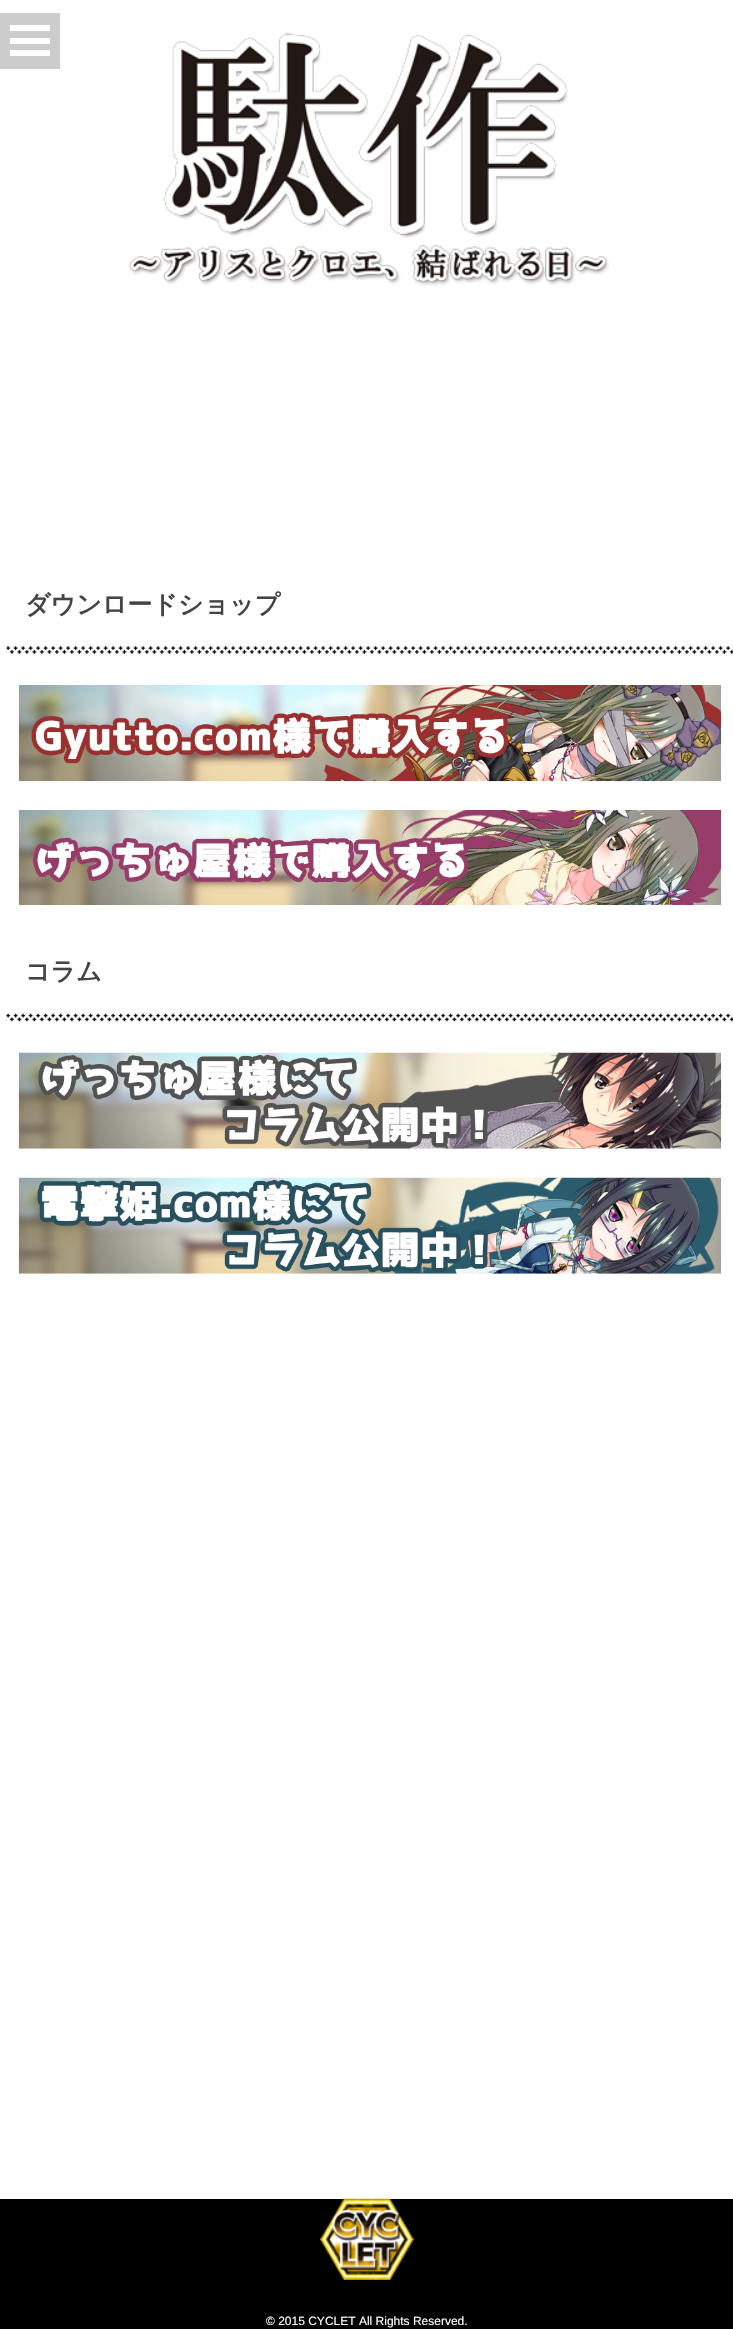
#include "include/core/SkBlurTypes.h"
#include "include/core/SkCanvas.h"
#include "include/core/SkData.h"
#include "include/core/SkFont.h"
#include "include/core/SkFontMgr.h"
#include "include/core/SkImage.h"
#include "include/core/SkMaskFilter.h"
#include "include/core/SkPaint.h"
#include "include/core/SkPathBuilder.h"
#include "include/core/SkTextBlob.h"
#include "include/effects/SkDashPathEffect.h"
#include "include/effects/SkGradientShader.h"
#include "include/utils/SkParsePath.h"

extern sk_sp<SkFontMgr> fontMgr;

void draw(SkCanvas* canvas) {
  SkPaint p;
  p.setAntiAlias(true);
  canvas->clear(SK_ColorWHITE);
  p.setColor(SkColorSetRGB(204, 204, 204));
  canvas->drawRect(SkRect::MakeLTRB(0, 13, 60, 69), p);
  p.setColor(SK_ColorWHITE);
  canvas->drawRect(SkRect::MakeLTRB(10, 50, 50, 56), p);
  canvas->drawRect(SkRect::MakeLTRB(10, 38, 50, 44), p);
  canvas->drawRect(SkRect::MakeLTRB(10, 25, 50, 31), p);
  canvas->drawImageRect(SkImages::DeferredFromEncodedData(SkData::MakeFromFileName("images/1.png")), SkRect::MakeLTRB(128, 32, 609, 286), SkSamplingOptions());
  canvas->drawImageRect(SkImages::DeferredFromEncodedData(SkData::MakeFromFileName("images/2.png")), SkRect::MakeLTRB(6, 646, 733, 654), SkSamplingOptions());
  canvas->drawImageRect(SkImages::DeferredFromEncodedData(SkData::MakeFromFileName("images/3.png")), SkRect::MakeLTRB(18, 685, 722, 782), SkSamplingOptions());
  canvas->drawImageRect(SkImages::DeferredFromEncodedData(SkData::MakeFromFileName("images/4.png")), SkRect::MakeLTRB(18, 810, 722, 905), SkSamplingOptions());
  canvas->drawImageRect(SkImages::DeferredFromEncodedData(SkData::MakeFromFileName("images/5.png")), SkRect::MakeLTRB(6, 1013, 733, 1022), SkSamplingOptions());
  canvas->drawImageRect(SkImages::DeferredFromEncodedData(SkData::MakeFromFileName("images/6.png")), SkRect::MakeLTRB(18, 1052, 722, 1149), SkSamplingOptions());
  canvas->drawImageRect(SkImages::DeferredFromEncodedData(SkData::MakeFromFileName("images/7.png")), SkRect::MakeLTRB(18, 1177, 722, 1274), SkSamplingOptions());
  p.setColor(SK_ColorBLACK);
  canvas->drawRect(SkRect::MakeLTRB(0, 2199, 733, 2329), p);
  canvas->drawImageRect(SkImages::DeferredFromEncodedData(SkData::MakeFromFileName("images/8.png")), SkRect::MakeLTRB(320, 2198, 414, 2280), SkSamplingOptions());
  SkFont font1(fontMgr->matchFamilyStyle("WenQuanYi Zen Hei", SkFontStyle::Bold()), 25);
  font1.setSubpixel(true);
  p.setColor(SkColorSetRGB(68, 68, 68));
  canvas->drawString("ダウンロードショップ", 25, 613, font1, p);
  canvas->drawString("コラム", 25, 980, font1, p);
  SkFont font2(fontMgr->matchFamilyStyle("Liberation Sans", SkFontStyle::Normal()), 12);
  font2.setSubpixel(true);
  p.setColor(SK_ColorWHITE);
  canvas->drawString("© 2015 CYCLET All Rights Reserved.", 266, 2325, font2, p);
}
